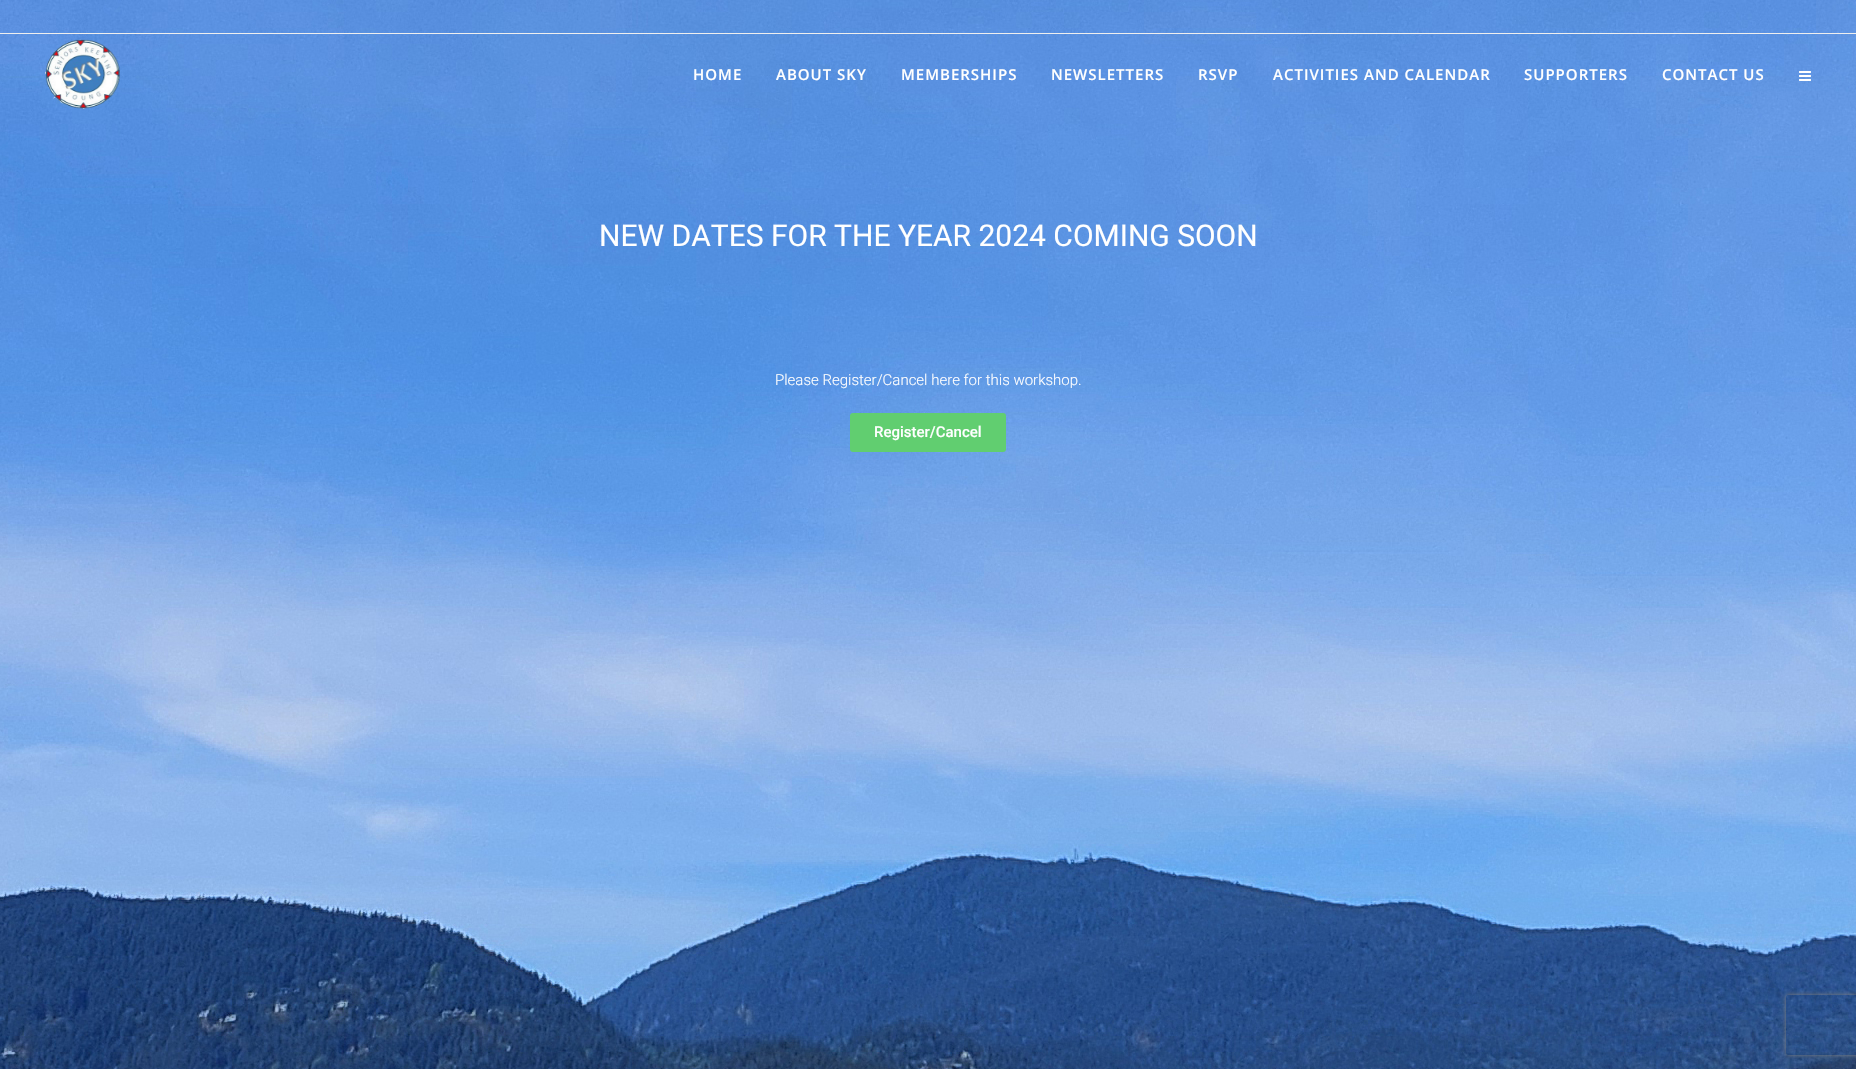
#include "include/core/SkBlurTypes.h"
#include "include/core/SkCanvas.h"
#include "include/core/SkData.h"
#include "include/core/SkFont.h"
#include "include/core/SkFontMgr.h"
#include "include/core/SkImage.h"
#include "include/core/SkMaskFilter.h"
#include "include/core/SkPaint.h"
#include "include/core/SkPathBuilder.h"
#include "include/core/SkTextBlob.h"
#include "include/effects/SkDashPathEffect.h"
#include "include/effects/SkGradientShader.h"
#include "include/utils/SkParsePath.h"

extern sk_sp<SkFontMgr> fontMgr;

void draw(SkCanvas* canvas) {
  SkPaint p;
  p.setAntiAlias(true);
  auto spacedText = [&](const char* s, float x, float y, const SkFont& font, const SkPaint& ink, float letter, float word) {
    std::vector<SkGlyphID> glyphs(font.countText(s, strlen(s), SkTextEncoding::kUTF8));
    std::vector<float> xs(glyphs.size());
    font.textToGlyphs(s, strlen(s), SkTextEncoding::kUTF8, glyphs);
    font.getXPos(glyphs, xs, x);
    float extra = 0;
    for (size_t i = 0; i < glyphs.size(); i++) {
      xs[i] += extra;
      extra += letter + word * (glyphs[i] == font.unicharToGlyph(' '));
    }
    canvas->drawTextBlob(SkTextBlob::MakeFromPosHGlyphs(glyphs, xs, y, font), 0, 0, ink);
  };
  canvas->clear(SK_ColorWHITE);
  canvas->drawImageRect(SkImages::DeferredFromEncodedData(SkData::MakeFromFileName("images/1.png")), SkRect::MakeLTRB(0, 0, 1856, 1069), SkSamplingOptions());
  p.setColor(SkColorSetRGB(239, 239, 239));
  canvas->drawRect(SkRect::MakeLTRB(0, 33, 1856, 34), p);
  canvas->drawImageRect(SkImages::DeferredFromEncodedData(SkData::MakeFromFileName("images/2.png")), SkRect::MakeLTRB(45, 39, 120, 109), SkSamplingOptions());
  canvas->drawImageRect(SkImages::DeferredFromEncodedData(SkData::MakeFromFileName("images/3.png")), SkRect::MakeLTRB(1799, 71, 1811, 81), SkSamplingOptions());
  p.setColor(SkColorSetRGB(97, 206, 112));
  canvas->drawRoundRect(SkRect::MakeLTRB(850, 413, 1006, 452), 3, 3, p);
  canvas->save();
  canvas->clipPath(SkPathBuilder(SkPathFillType::kEvenOdd).moveTo(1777, 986).lineTo(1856, 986).lineTo(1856, 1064).lineTo(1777, 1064).close().moveTo(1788, 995).lineTo(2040, 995).cubicTo(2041, 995, 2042, 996, 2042, 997).lineTo(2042, 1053).cubicTo(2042, 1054, 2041, 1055, 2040, 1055).lineTo(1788, 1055).cubicTo(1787, 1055, 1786, 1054, 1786, 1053).lineTo(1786, 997).cubicTo(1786, 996, 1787, 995, 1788, 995).close().detach(), true);
  p.setColor(SkColorSetRGB(128, 128, 128));
  p.setMaskFilter(SkMaskFilter::MakeBlur(kNormal_SkBlurStyle, 2.5f));
  canvas->drawRoundRect(SkRect::MakeLTRB(1786, 995, 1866, 1055), 2, 2, p);
  p.setMaskFilter(nullptr);
  canvas->restore();
  SkFont font1(fontMgr->matchFamilyStyle("Open Sans", SkFontStyle(600, SkFontStyle::kNormal_Width, SkFontStyle::kUpright_Slant)), 15);
  font1.setSubpixel(true);
  p.setColor(SK_ColorWHITE);
  spacedText("HOME", 693, 80, font1, p, 1, 0);
  spacedText("ABOUT SKY", 776, 80, font1, p, 1, 0);
  spacedText("MEMBERSHIPS", 901, 80, font1, p, 1, 0);
  spacedText("NEWSLETTERS", 1051, 80, font1, p, 1, 0);
  spacedText("RSVP", 1198, 80, font1, p, 1, 0);
  spacedText("ACTIVITIES AND CALENDAR", 1273, 80, font1, p, 1, 0);
  spacedText("SUPPORTERS", 1524, 80, font1, p, 1, 0);
  spacedText("CONTACT US", 1662, 80, font1, p, 1, 0);
  SkFont font2(fontMgr->matchFamilyStyle("Roboto", SkFontStyle::Normal()), 30);
  font2.setSubpixel(true);
  canvas->drawString("NEW DATES FOR THE YEAR 2024 COMING SOON", 599, 246, font2, p);
  SkFont font3(fontMgr->matchFamilyStyle("Roboto", SkFontStyle(300, SkFontStyle::kNormal_Width, SkFontStyle::kUpright_Slant)), 15);
  font3.setSubpixel(true);
  canvas->drawString("Please Register/Cancel here for this workshop.", 775, 385, font3, p);
  SkFont font4(fontMgr->matchFamilyStyle("Roboto", SkFontStyle(500, SkFontStyle::kNormal_Width, SkFontStyle::kUpright_Slant)), 15);
  font4.setSubpixel(true);
  canvas->drawString("Register/Cancel", 874, 437, font4, p);
}
